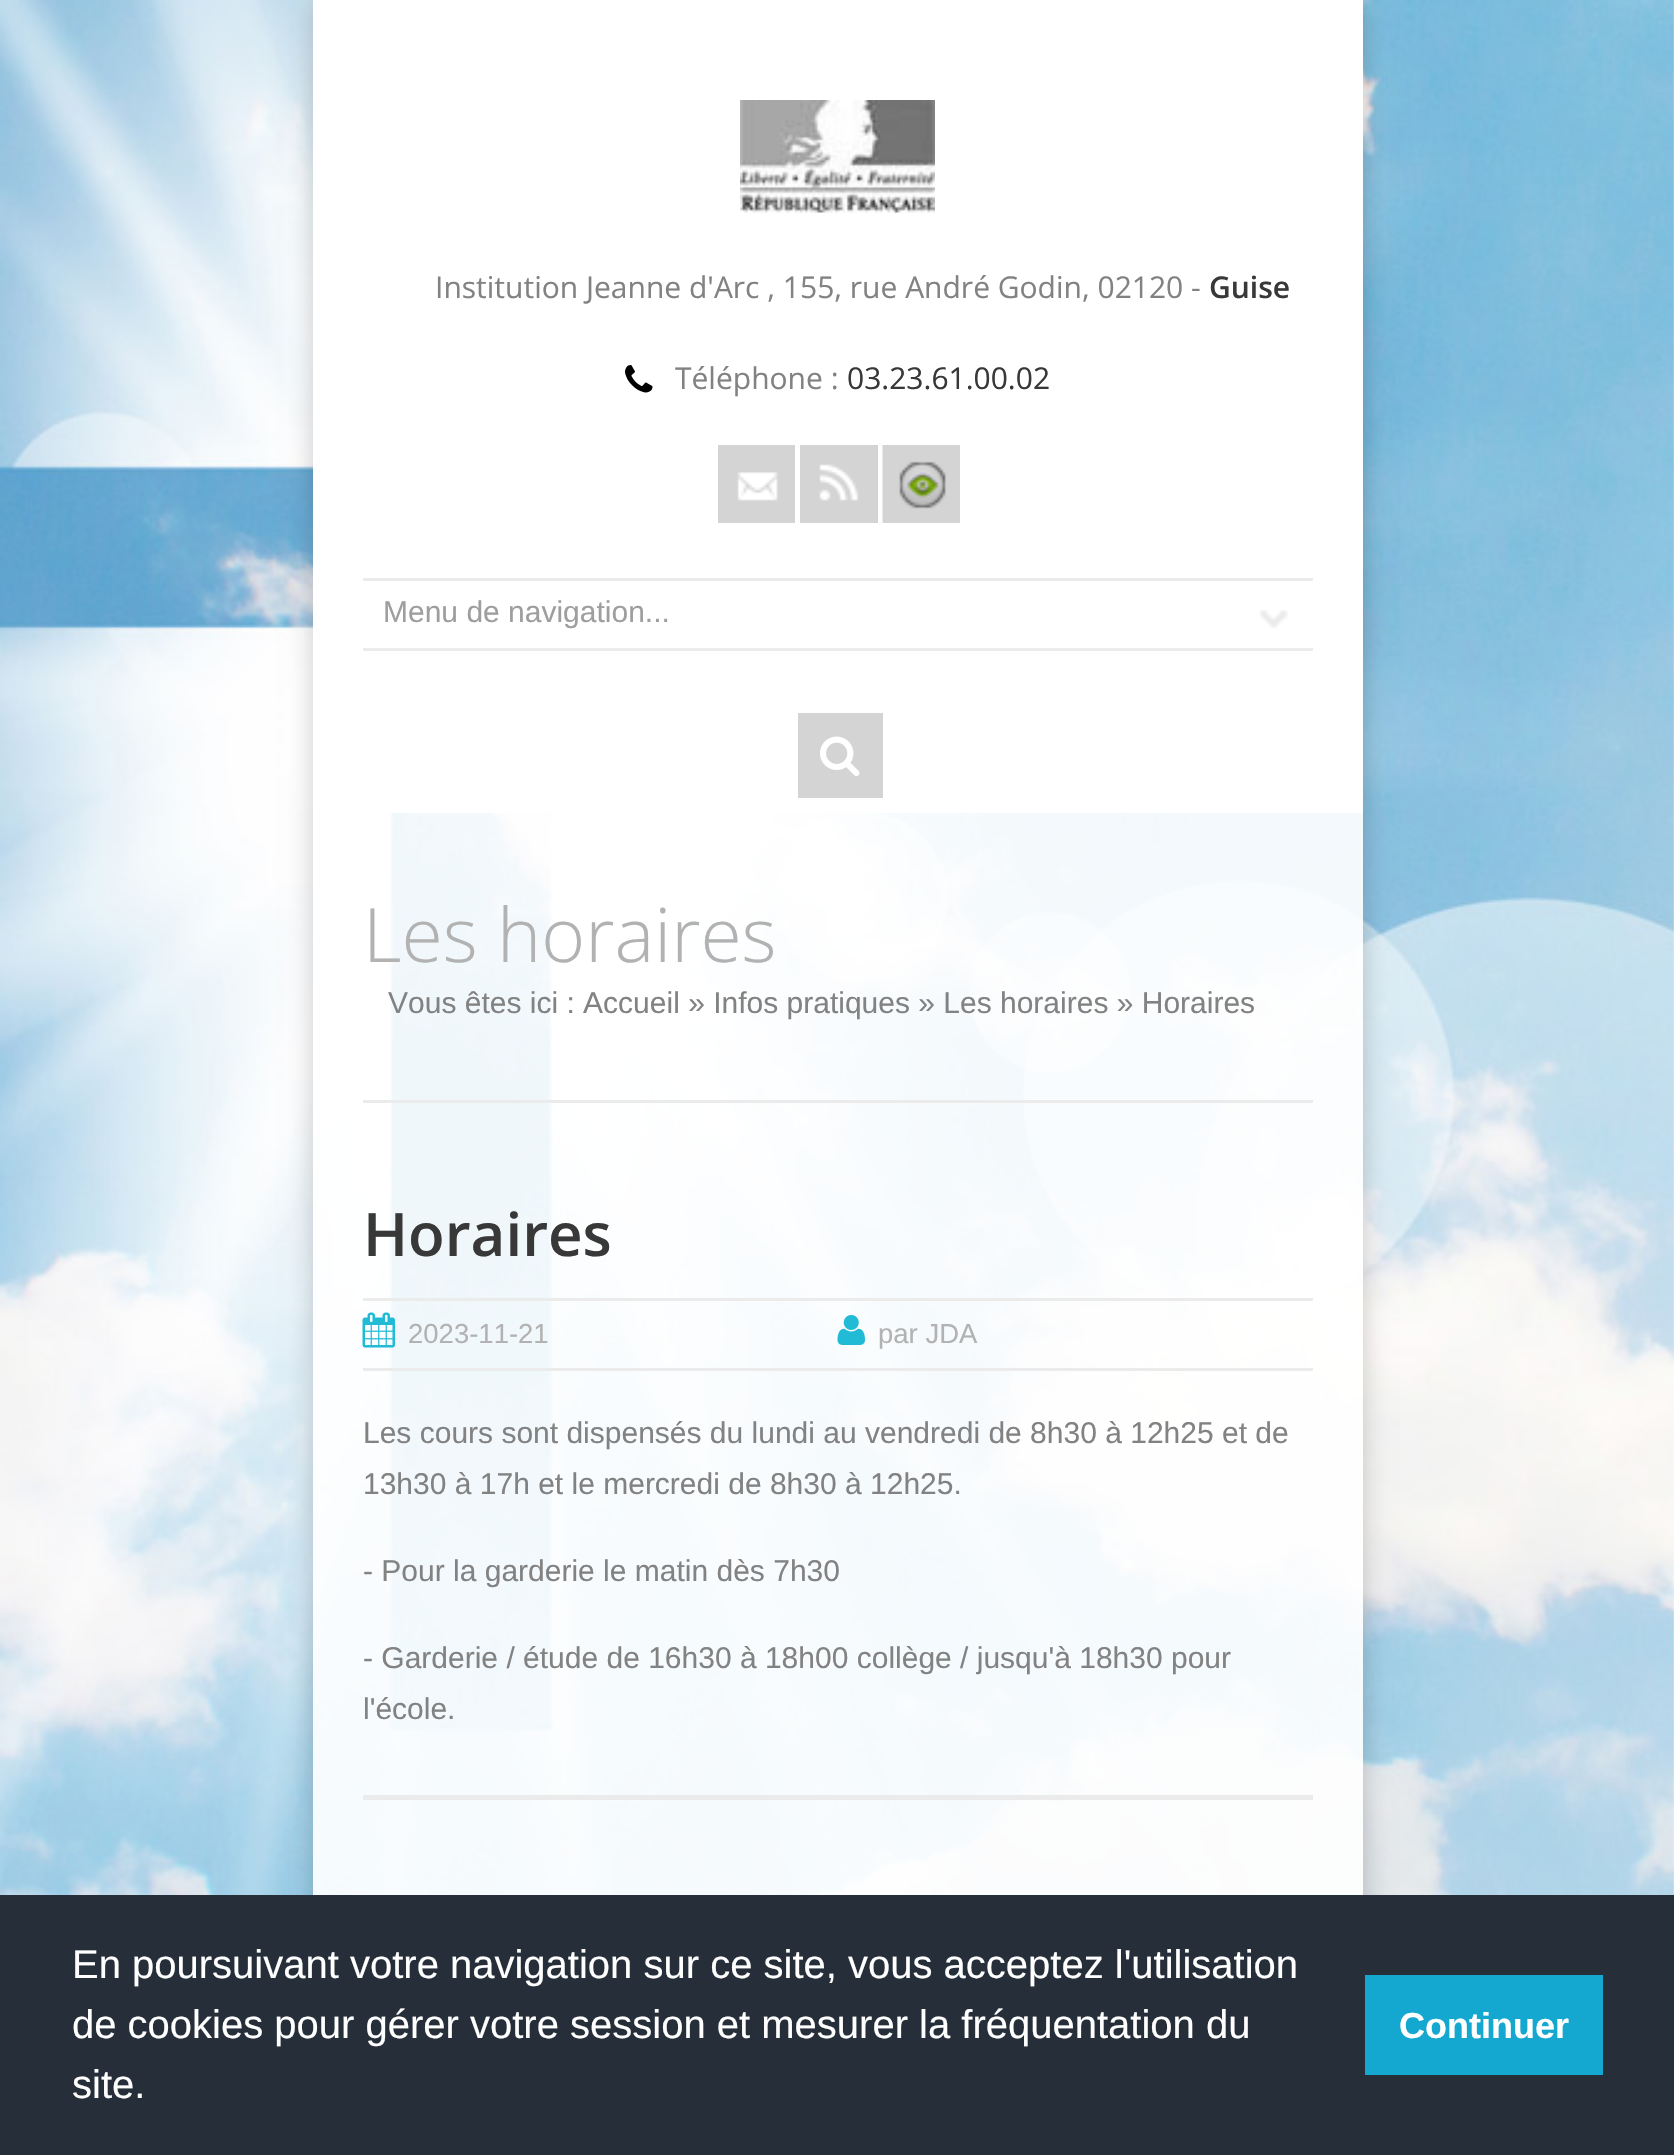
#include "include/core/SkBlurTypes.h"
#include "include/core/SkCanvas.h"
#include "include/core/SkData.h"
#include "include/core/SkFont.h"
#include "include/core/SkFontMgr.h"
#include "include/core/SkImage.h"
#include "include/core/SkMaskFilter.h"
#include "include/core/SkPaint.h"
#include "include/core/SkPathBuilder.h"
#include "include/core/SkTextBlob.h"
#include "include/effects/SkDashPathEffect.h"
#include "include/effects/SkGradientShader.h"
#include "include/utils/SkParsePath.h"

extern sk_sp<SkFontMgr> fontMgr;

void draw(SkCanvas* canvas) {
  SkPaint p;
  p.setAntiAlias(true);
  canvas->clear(SK_ColorWHITE);
  canvas->drawImageRect(SkImages::DeferredFromEncodedData(SkData::MakeFromFileName("images/1.png")), SkRect::MakeLTRB(0, 0, 1674, 1895), SkSamplingOptions());
  canvas->save();
  canvas->clipPath(SkPathBuilder(SkPathFillType::kEvenOdd).moveTo(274, 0).lineTo(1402, 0).lineTo(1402, 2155).lineTo(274, 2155).close().moveTo(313, 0).lineTo(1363, 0).lineTo(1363, 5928).lineTo(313, 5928).close().detach(), true);
  p.setColor(SkColorSetARGB(51, 0, 0, 0));
  p.setMaskFilter(SkMaskFilter::MakeBlur(kNormal_SkBlurStyle, 12.5f));
  canvas->drawRect(SkRect::MakeLTRB(313, 0, 1363, 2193), p);
  p.setMaskFilter(nullptr);
  canvas->restore();
  p.setColor(SkColorSetARGB(230, 255, 255, 255));
  canvas->drawRect(SkRect::MakeLTRB(313, 813, 1363, 1895), p);
  p.setColor(SK_ColorWHITE);
  canvas->drawRect(SkRect::MakeLTRB(313, 0, 1363, 813), p);
  canvas->drawImageRect(SkImages::DeferredFromEncodedData(SkData::MakeFromFileName("images/2.png")), SkRect::MakeLTRB(740, 100, 935, 213), SkSamplingOptions());
  canvas->drawImageRect(SkImages::DeferredFromEncodedData(SkData::MakeFromFileName("images/3.png")), SkRect::MakeLTRB(625, 365, 653, 393), SkSamplingOptions());
  p.setColor(SkColorSetRGB(212, 212, 212));
  canvas->drawRect(SkRect::MakeLTRB(718, 445, 795, 523), p);
  canvas->drawImageRect(SkImages::DeferredFromEncodedData(SkData::MakeFromFileName("images/4.png")), SkRect::MakeLTRB(737, 472, 778, 501), SkSamplingOptions());
  canvas->drawRect(SkRect::MakeLTRB(800, 445, 878, 523), p);
  canvas->drawImageRect(SkImages::DeferredFromEncodedData(SkData::MakeFromFileName("images/5.png")), SkRect::MakeLTRB(819, 464, 859, 501), SkSamplingOptions());
  canvas->drawRect(SkRect::MakeLTRB(883, 445, 960, 523), p);
  canvas->drawImageRect(SkImages::DeferredFromEncodedData(SkData::MakeFromFileName("images/6.png")), SkRect::MakeLTRB(882, 445, 946, 523), SkSamplingOptions());
  canvas->drawImageRect(SkImages::DeferredFromEncodedData(SkData::MakeFromFileName("images/7.png")), SkRect::MakeLTRB(1259, 610, 1288, 628), SkSamplingOptions());
  p.setColor(SkColorSetRGB(235, 235, 235));
  canvas->drawRect(SkRect::MakeLTRB(363, 578, 1313, 581), p);
  canvas->drawRect(SkRect::MakeLTRB(363, 648, 1313, 651), p);
  p.setColor(SkColorSetRGB(212, 212, 212));
  canvas->drawRect(SkRect::MakeLTRB(798, 713, 883, 798), p);
  canvas->drawImageRect(SkImages::DeferredFromEncodedData(SkData::MakeFromFileName("images/8.png")), SkRect::MakeLTRB(820, 736, 860, 776), SkSamplingOptions());
  p.setColor(SkColorSetRGB(235, 235, 235));
  canvas->drawRect(SkRect::MakeLTRB(363, 1100, 1313, 1103), p);
  canvas->drawRect(SkRect::MakeLTRB(363, 1795, 1313, 1800), p);
  canvas->drawRect(SkRect::MakeLTRB(363, 1298, 1313, 1301), p);
  canvas->drawRect(SkRect::MakeLTRB(363, 1368, 1313, 1371), p);
  canvas->drawImageRect(SkImages::DeferredFromEncodedData(SkData::MakeFromFileName("images/9.png")), SkRect::MakeLTRB(362, 1312, 395, 1348), SkSamplingOptions());
  canvas->drawImageRect(SkImages::DeferredFromEncodedData(SkData::MakeFromFileName("images/10.png")), SkRect::MakeLTRB(837, 1315, 865, 1345), SkSamplingOptions());
  p.setColor(SkColorSetRGB(37, 46, 57));
  canvas->drawRect(SkRect::MakeLTRB(0, 1895, 1674, 2155), p);
  p.setColor(SkColorSetRGB(20, 167, 208));
  canvas->drawRect(SkRect::MakeLTRB(1365, 1975, 1603, 2075), p);
  SkFont font1(fontMgr->matchFamilyStyle("Open Sans", SkFontStyle::Normal()), 30);
  font1.setSubpixel(true);
  p.setColor(SkColorSetRGB(130, 130, 130));
  canvas->drawString("Institution Jeanne d'Arc , 155, rue André Godin, 02120 -", 435, 298, font1, p);
  SkFont font2(fontMgr->matchFamilyStyle("Open Sans", SkFontStyle(600, SkFontStyle::kNormal_Width, SkFontStyle::kUpright_Slant)), 30);
  font2.setSubpixel(true);
  p.setColor(SkColorSetRGB(56, 56, 56));
  canvas->drawString("Guise", 1209, 298, font2, p);
  p.setColor(SkColorSetRGB(130, 130, 130));
  canvas->drawString("Téléphone :", 675, 389, font1, p);
  p.setColor(SkColorSetRGB(56, 56, 56));
  canvas->drawString("03.23.61.00.02", 847, 389, font1, p);
  SkFont font3(fontMgr->matchFamilyStyle("Liberation Sans", SkFontStyle::Normal()), 30);
  font3.setSubpixel(true);
  p.setColor(SkColorSetRGB(158, 158, 158));
  canvas->drawString("Menu de navigation...", 383, 622, font3, p);
  SkFont font4(fontMgr->matchFamilyStyle("Open Sans", SkFontStyle(300, SkFontStyle::kNormal_Width, SkFontStyle::kUpright_Slant)), 75);
  font4.setSubpixel(true);
  p.setColor(SkColorSetRGB(178, 178, 178));
  canvas->drawString("Les horaires", 363, 962, font4, p);
  p.setColor(SkColorSetRGB(130, 130, 130));
  canvas->drawString("Vous êtes ici : Accueil » Infos pratiques » Les horaires » Horaires", 388, 1013, font3, p);
  SkFont font5(fontMgr->matchFamilyStyle("Open Sans", SkFontStyle(600, SkFontStyle::kNormal_Width, SkFontStyle::kUpright_Slant)), 60);
  font5.setSubpixel(true);
  p.setColor(SkColorSetRGB(56, 56, 56));
  canvas->drawString("Horaires", 363, 1256, font5, p);
  SkFont font6(fontMgr->matchFamilyStyle("Liberation Sans", SkFontStyle::Normal()), 27.5f);
  font6.setSubpixel(true);
  p.setColor(SkColorSetRGB(178, 178, 178));
  canvas->drawString("2023-11-21", 408, 1343, font6, p);
  canvas->drawString("par JDA", 878, 1343, font6, p);
  p.setColor(SkColorSetRGB(130, 130, 130));
  canvas->drawString("Les cours sont dispensés du lundi au vendredi de 8h30 à 12h25 et de", 363, 1443, font3, p);
  canvas->drawString("13h30 à 17h et le mercredi de 8h30 à 12h25.", 363, 1494, font3, p);
  canvas->drawString("- Pour la garderie le matin dès 7h30", 363, 1581, font3, p);
  canvas->drawString("- Garderie / étude de 16h30 à 18h00 collège / jusqu'à 18h30 pour", 363, 1668, font3, p);
  canvas->drawString("l'école.", 363, 1719, font3, p);
  SkFont font7(fontMgr->matchFamilyStyle("Liberation Sans", SkFontStyle::Normal()), 40);
  font7.setSubpixel(true);
  p.setColor(SK_ColorWHITE);
  canvas->drawString("En poursuivant votre navigation sur ce site, vous acceptez l'utilisation", 72, 1978, font7, p);
  canvas->drawString("de cookies pour gérer votre session et mesurer la fréquentation du", 72, 2038, font7, p);
  canvas->drawString("site.", 72, 2098, font7, p);
  SkFont font8(fontMgr->matchFamilyStyle("Liberation Sans", SkFontStyle::Bold()), 36);
  font8.setSubpixel(true);
  canvas->drawString("Continuer", 1399, 2038, font8, p);
}
